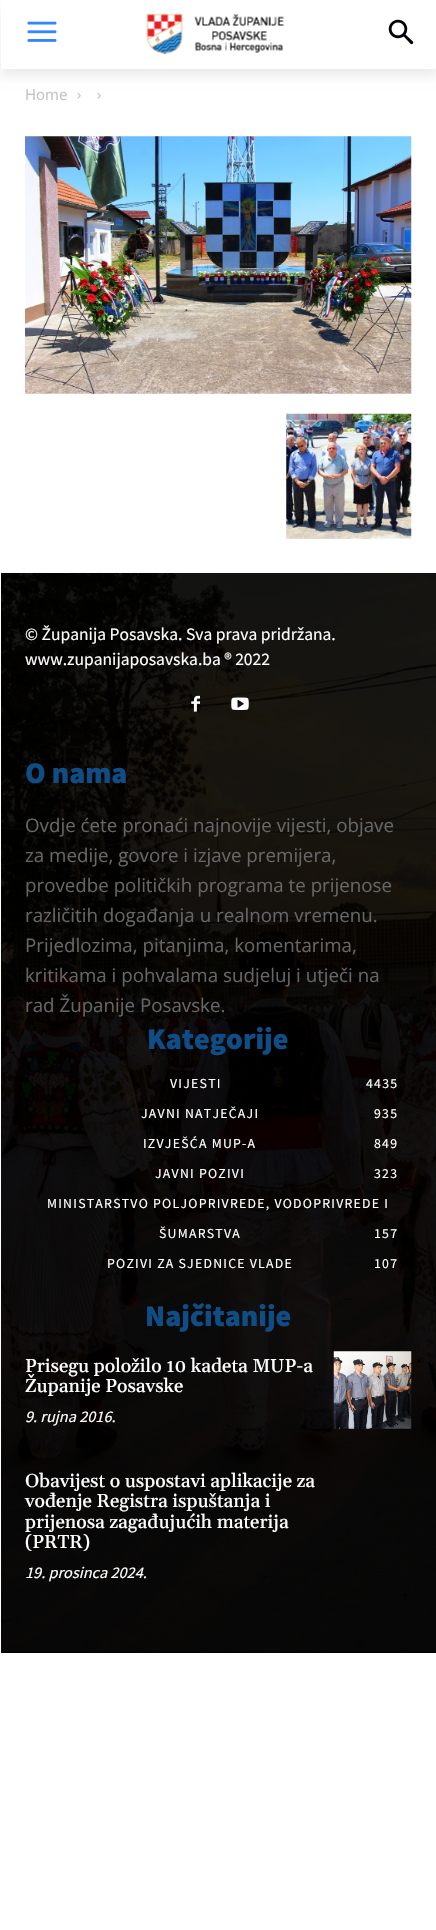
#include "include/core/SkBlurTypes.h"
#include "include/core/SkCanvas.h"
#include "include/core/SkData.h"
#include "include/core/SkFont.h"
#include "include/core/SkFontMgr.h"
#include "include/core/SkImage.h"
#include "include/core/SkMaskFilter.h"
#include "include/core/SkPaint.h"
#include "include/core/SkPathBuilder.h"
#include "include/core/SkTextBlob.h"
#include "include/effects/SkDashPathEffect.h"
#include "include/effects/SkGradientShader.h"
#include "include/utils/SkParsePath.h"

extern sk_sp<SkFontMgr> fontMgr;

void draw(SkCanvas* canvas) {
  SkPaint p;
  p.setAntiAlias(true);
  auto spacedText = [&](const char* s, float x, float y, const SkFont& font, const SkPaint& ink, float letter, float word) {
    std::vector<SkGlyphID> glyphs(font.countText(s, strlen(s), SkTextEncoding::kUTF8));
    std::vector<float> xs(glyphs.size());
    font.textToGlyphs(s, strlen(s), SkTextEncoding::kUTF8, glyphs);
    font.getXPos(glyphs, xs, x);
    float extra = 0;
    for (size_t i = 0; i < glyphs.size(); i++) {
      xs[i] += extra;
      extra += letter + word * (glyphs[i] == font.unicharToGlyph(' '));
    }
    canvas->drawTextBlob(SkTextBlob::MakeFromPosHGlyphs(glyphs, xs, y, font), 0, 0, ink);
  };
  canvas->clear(SK_ColorWHITE);
  canvas->drawImageRect(SkImages::DeferredFromEncodedData(SkData::MakeFromFileName("images/1.png")), SkRect::MakeLTRB(27, 21, 57, 42), SkSamplingOptions());
  canvas->drawImageRect(SkImages::DeferredFromEncodedData(SkData::MakeFromFileName("images/2.png")), SkRect::MakeLTRB(146, 13, 284, 55), SkSamplingOptions());
  canvas->drawImageRect(SkImages::DeferredFromEncodedData(SkData::MakeFromFileName("images/3.png")), SkRect::MakeLTRB(388, 19, 414, 45), SkSamplingOptions());
  canvas->save();
  canvas->clipPath(SkPathBuilder(SkPathFillType::kEvenOdd).moveTo(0, 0).lineTo(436, 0).lineTo(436, 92).lineTo(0, 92).close().moveTo(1, 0).lineTo(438, 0).lineTo(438, 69).lineTo(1, 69).close().detach(), true);
  p.setColor(SkColorSetARGB(20, 0, 0, 0));
  p.setMaskFilter(SkMaskFilter::MakeBlur(kNormal_SkBlurStyle, 5));
  canvas->drawRect(SkRect::MakeLTRB(1, 8, 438, 76), p);
  p.setMaskFilter(nullptr);
  canvas->restore();
  canvas->drawImageRect(SkImages::DeferredFromEncodedData(SkData::MakeFromFileName("images/4.png")), SkRect::MakeLTRB(77, 93, 81, 99), SkSamplingOptions());
  canvas->drawImageRect(SkImages::DeferredFromEncodedData(SkData::MakeFromFileName("images/4.png")), SkRect::MakeLTRB(97, 93, 101, 99), SkSamplingOptions());
  canvas->drawImageRect(SkImages::DeferredFromEncodedData(SkData::MakeFromFileName("images/5.png")), SkRect::MakeLTRB(25, 136, 412, 394), SkSamplingOptions());
  canvas->drawImageRect(SkImages::DeferredFromEncodedData(SkData::MakeFromFileName("images/6.png")), SkRect::MakeLTRB(286, 413, 412, 539), SkSamplingOptions());
  p.setColor(SK_ColorBLACK);
  canvas->drawRect(SkRect::MakeLTRB(1, 573, 436, 1653), p);
  canvas->drawImageRect(SkImages::DeferredFromEncodedData(SkData::MakeFromFileName("images/7.png")), SkRect::MakeLTRB(1, 572, 436, 1652), SkSamplingOptions());
  canvas->drawImageRect(SkImages::DeferredFromEncodedData(SkData::MakeFromFileName("images/8.png")), SkRect::MakeLTRB(191, 695, 200, 712), SkSamplingOptions());
  canvas->drawImageRect(SkImages::DeferredFromEncodedData(SkData::MakeFromFileName("images/9.png")), SkRect::MakeLTRB(231, 697, 249, 710), SkSamplingOptions());
  canvas->drawImageRect(SkImages::DeferredFromEncodedData(SkData::MakeFromFileName("images/10.png")), SkRect::MakeLTRB(333, 1351, 412, 1429), SkSamplingOptions());
  SkFont font1(fontMgr->matchFamilyStyle("Open Sans", SkFontStyle::Normal()), 15);
  font1.setSubpixel(true);
  p.setColor(SkColorSetRGB(195, 195, 195));
  canvas->drawString("Home", 25, 100, font1, p);
  SkFont font2(fontMgr->matchFamilyStyle("Source Sans Pro", SkFontStyle::Normal()), 17.5f);
  font2.setSubpixel(true);
  p.setColor(SK_ColorWHITE);
  canvas->drawString("© Županija Posavska. Sva prava pridržana.", 25, 640, font2, p);
  canvas->drawString("www.zupanijaposavska.ba ® 2022", 25, 665, font2, p);
  SkFont font3(fontMgr->matchFamilyStyle("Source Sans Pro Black", SkFontStyle(900, SkFontStyle::kNormal_Width, SkFontStyle::kUpright_Slant)), 30);
  font3.setSubpixel(true);
  p.setColor(SkColorSetRGB(15, 77, 134));
  canvas->drawString("O nama", 25, 783, font3, p);
  SkFont font4(fontMgr->matchFamilyStyle("Open Sans", SkFontStyle::Normal()), 18.75f);
  font4.setSubpixel(true);
  p.setColor(SkColorSetRGB(102, 102, 102));
  canvas->drawString("Ovdje ćete pronaći najnovije vijesti, objave", 25, 832, font4, p);
  canvas->drawString("za medije, govore i izjave premijera,", 25, 862, font4, p);
  canvas->drawString("provedbe političkih programa te prijenose", 25, 892, font4, p);
  canvas->drawString("različitih događanja u realnom vremenu.", 25, 922, font4, p);
  canvas->drawString("Prijedlozima, pitanjima, komentarima,", 25, 952, font4, p);
  canvas->drawString("kritikama i pohvalama sudjeluj i utječi na", 25, 982, font4, p);
  canvas->drawString("rad Županije Posavske.", 25, 1012, font4, p);
  p.setColor(SkColorSetRGB(15, 77, 134));
  canvas->drawString("Kategorije", 147, 1049, font3, p);
  SkFont font5(fontMgr->matchFamilyStyle("Source Sans Pro", SkFontStyle::Normal()), 13.75f);
  font5.setSubpixel(true);
  p.setColor(SK_ColorWHITE);
  spacedText("VIJESTI", 170, 1088, font5, p, 1.25f, 0);
  spacedText("4435", 366, 1088, font5, p, 1.25f, 0);
  spacedText("JAVNI NATJEČAJI", 141, 1118, font5, p, 1.25f, 0);
  spacedText("935", 374, 1118, font5, p, 1.25f, 0);
  spacedText("IZVJEŠĆA MUP-A", 143, 1148, font5, p, 1.25f, 0);
  spacedText("849", 374, 1148, font5, p, 1.25f, 0);
  spacedText("JAVNI POZIVI", 155, 1178, font5, p, 1.25f, 0);
  spacedText("323", 374, 1178, font5, p, 1.25f, 0);
  spacedText("MINISTARSTVO POLJOPRIVREDE, VODOPRIVREDE I", 47, 1208, font5, p, 1.25f, 0);
  spacedText("ŠUMARSTVA", 159, 1238, font5, p, 1.25f, 0);
  spacedText("157", 374, 1238, font5, p, 1.25f, 0);
  spacedText("POZIVI ZA SJEDNICE VLADE", 107, 1268, font5, p, 1.25f, 0);
  spacedText("107", 374, 1268, font5, p, 1.25f, 0);
  p.setColor(SkColorSetRGB(15, 77, 134));
  canvas->drawString("Najčitanije", 145, 1326, font3, p);
  SkFont font6(fontMgr->matchFamilyStyle("Gelasio", SkFontStyle(500, SkFontStyle::kNormal_Width, SkFontStyle::kUpright_Slant)), 18.75f);
  font6.setSubpixel(true);
  p.setColor(SK_ColorWHITE);
  canvas->drawString("Prisegu položilo 10 kadeta MUP-a", 25, 1372, font6, p);
  canvas->drawString("Županije Posavske", 25, 1392, font6, p);
  SkFont font7(fontMgr->matchFamilyStyle("Source Sans Pro", SkFontStyle::Italic()), 16.25f);
  font7.setSubpixel(true);
  canvas->drawString("9. rujna 2016.", 25, 1422, font7, p);
  canvas->drawString("Obavijest o uspostavi aplikacije za", 25, 1487, font6, p);
  canvas->drawString("vođenje Registra ispuštanja i", 25, 1507, font6, p);
  canvas->drawString("prijenosa zagađujućih materija", 25, 1528, font6, p);
  canvas->drawString("(PRTR)", 25, 1548, font6, p);
  canvas->drawString("19. prosinca 2024.", 25, 1578, font7, p);
}
